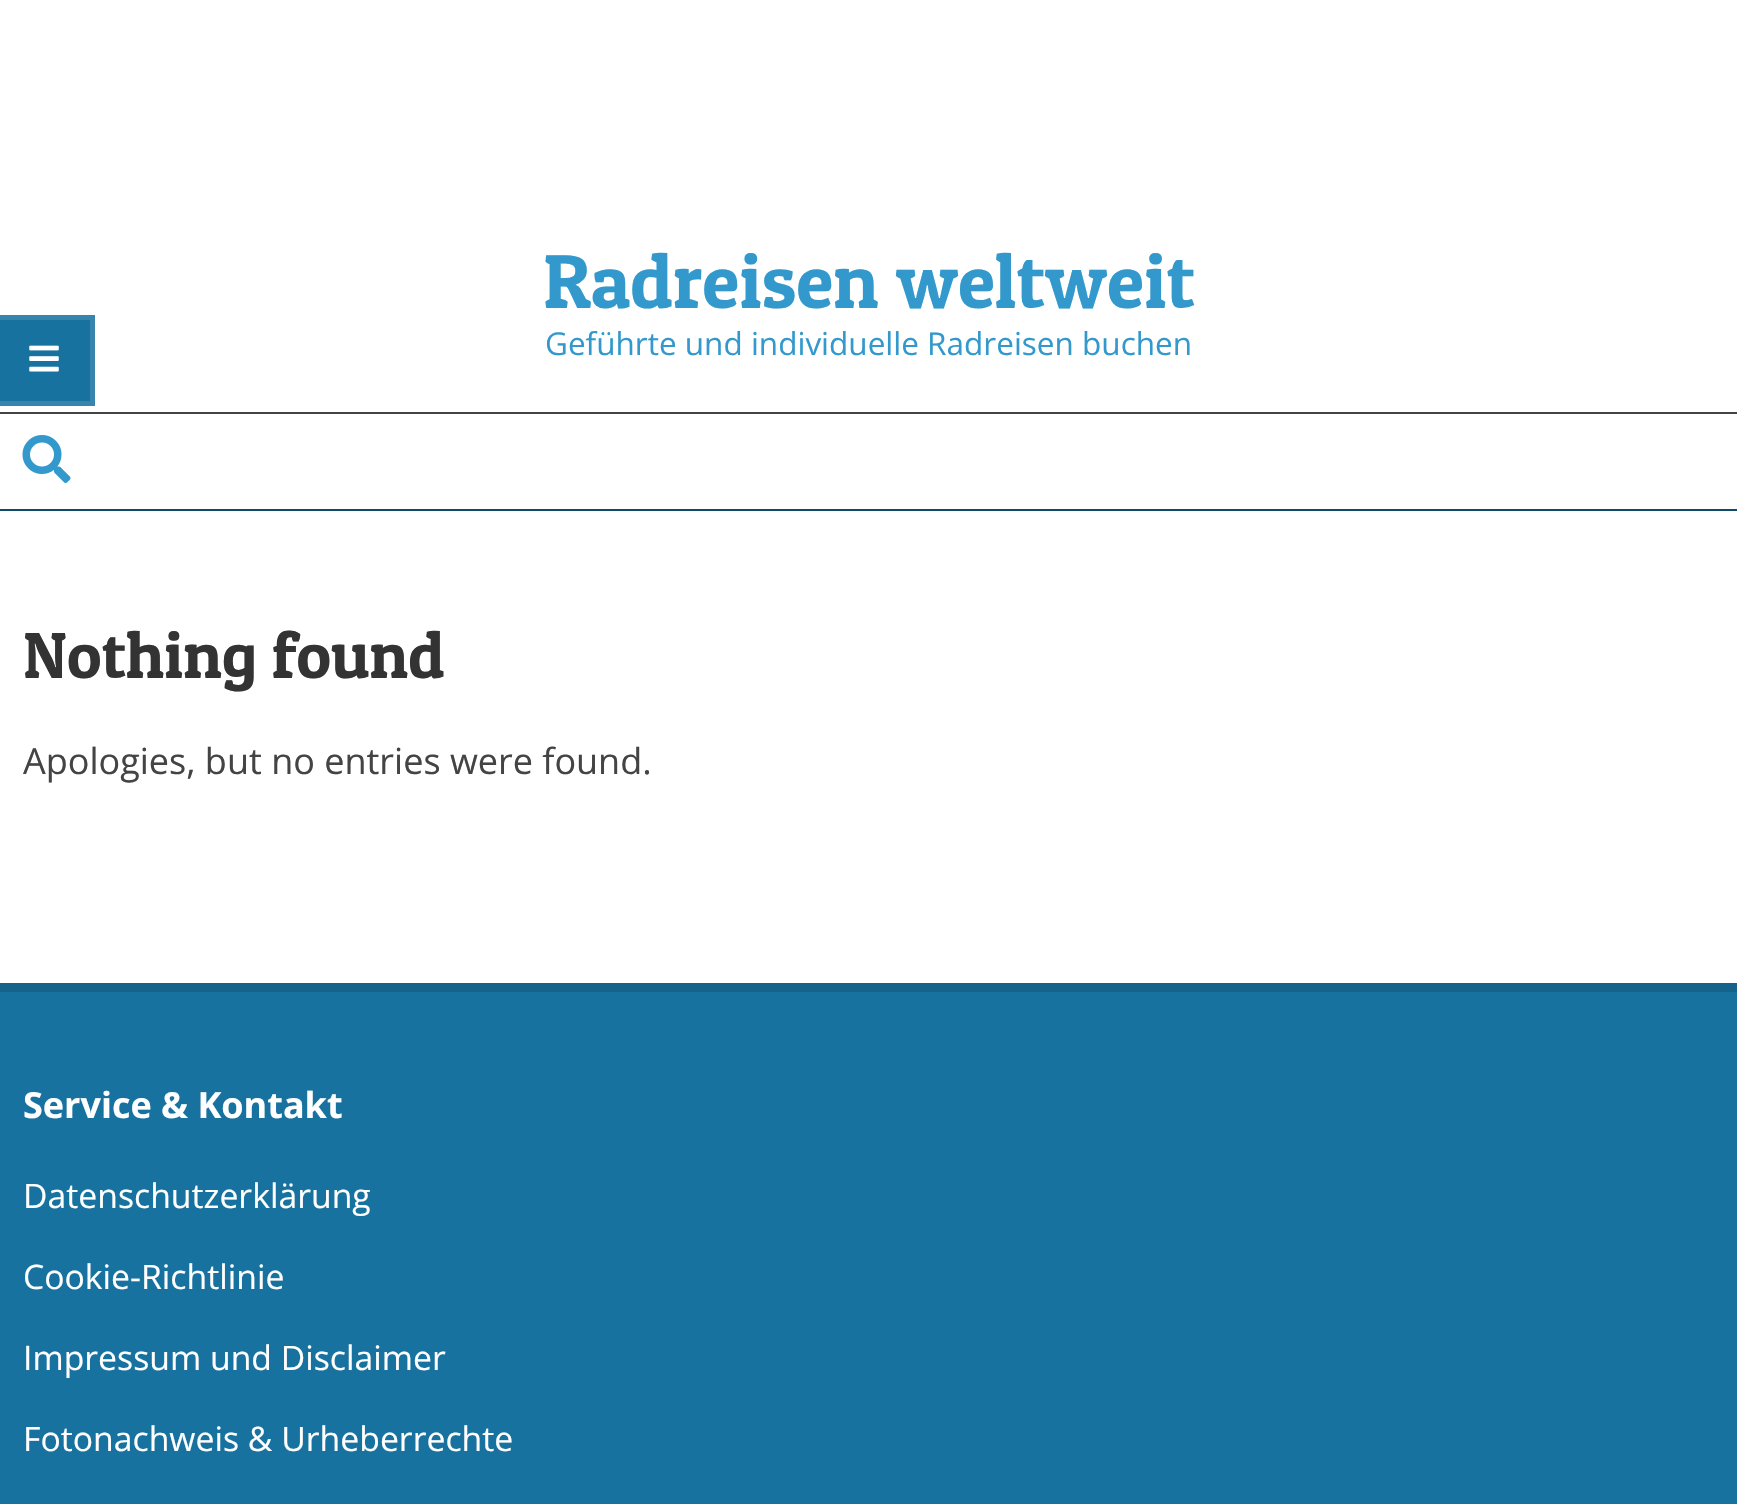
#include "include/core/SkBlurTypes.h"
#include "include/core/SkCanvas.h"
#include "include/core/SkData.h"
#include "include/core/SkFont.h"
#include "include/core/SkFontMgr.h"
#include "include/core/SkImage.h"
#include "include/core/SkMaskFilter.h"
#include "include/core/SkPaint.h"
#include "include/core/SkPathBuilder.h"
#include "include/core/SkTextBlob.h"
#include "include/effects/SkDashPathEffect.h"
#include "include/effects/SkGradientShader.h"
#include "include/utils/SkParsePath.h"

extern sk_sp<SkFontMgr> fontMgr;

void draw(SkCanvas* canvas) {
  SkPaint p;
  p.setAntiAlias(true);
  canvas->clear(SK_ColorWHITE);
  p.setColor(SkColorSetRGB(68, 68, 68));
  canvas->drawRect(SkRect::MakeLTRB(0, 412, 1737, 414), p);
  canvas->drawImageRect(SkImages::DeferredFromEncodedData(SkData::MakeFromFileName("images/1.png")), SkRect::MakeLTRB(22, 435, 71, 483), SkSamplingOptions());
  p.setColor(SkColorSetRGB(15, 73, 102));
  canvas->drawRect(SkRect::MakeLTRB(0, 509, 1737, 511), p);
  p.setColor(SkColorSetRGB(24, 114, 160));
  canvas->drawRect(SkRect::MakeLTRB(0, 320, 90, 401), p);
  p.setColor(SkColorSetRGB(55, 133, 173));
  canvas->drawRect(SkRect::MakeLTRB(0, 315, 95, 320), p);
  canvas->drawRect(SkRect::MakeLTRB(90, 315, 95, 405), p);
  canvas->drawRect(SkRect::MakeLTRB(0, 401, 95, 406), p);
  canvas->drawImageRect(SkImages::DeferredFromEncodedData(SkData::MakeFromFileName("images/2.png")), SkRect::MakeLTRB(29, 345, 59, 372), SkSamplingOptions());
  p.setColor(SkColorSetRGB(24, 114, 160));
  canvas->drawRect(SkRect::MakeLTRB(0, 992, 1737, 1504), p);
  p.setColor(SkColorSetRGB(21, 99, 139));
  canvas->drawRect(SkRect::MakeLTRB(0, 983, 1737, 992), p);
  SkFont font1(fontMgr->matchFamilyStyle("Patua One", SkFontStyle::Normal()), 76.5f);
  font1.setSubpixel(true);
  p.setColor(SkColorSetRGB(51, 153, 204));
  canvas->drawString("Radreisen weltweit", 543, 308, font1, p);
  SkFont font2(fontMgr->matchFamilyStyle("Open Sans", SkFontStyle::Normal()), 31.5f);
  font2.setSubpixel(true);
  canvas->drawString("Geführte und individuelle Radreisen buchen", 545, 355, font2, p);
  SkFont font3(fontMgr->matchFamilyStyle("Patua One", SkFontStyle::Normal()), 65.25f);
  font3.setSubpixel(true);
  p.setColor(SkColorSetRGB(51, 51, 51));
  canvas->drawString("Nothing found", 23, 678, font3, p);
  SkFont font4(fontMgr->matchFamilyStyle("Open Sans", SkFontStyle::Normal()), 36);
  font4.setSubpixel(true);
  p.setColor(SkColorSetRGB(68, 68, 68));
  canvas->drawString("Apologies, but no entries were found.", 23, 774, font4, p);
  SkFont font5(fontMgr->matchFamilyStyle("Open Sans", SkFontStyle::Bold()), 36);
  font5.setSubpixel(true);
  p.setColor(SK_ColorWHITE);
  canvas->drawString("Service & Kontakt", 23, 1118, font5, p);
  SkFont font6(fontMgr->matchFamilyStyle("Open Sans", SkFontStyle::Normal()), 33.75f);
  font6.setSubpixel(true);
  canvas->drawString("Datenschutzerklärung", 23, 1208, font6, p);
  canvas->drawString("Cookie-Richtlinie", 23, 1289, font6, p);
  canvas->drawString("Impressum und Disclaimer", 23, 1370, font6, p);
  canvas->drawString("Fotonachweis & Urheberrechte", 23, 1451, font6, p);
}
